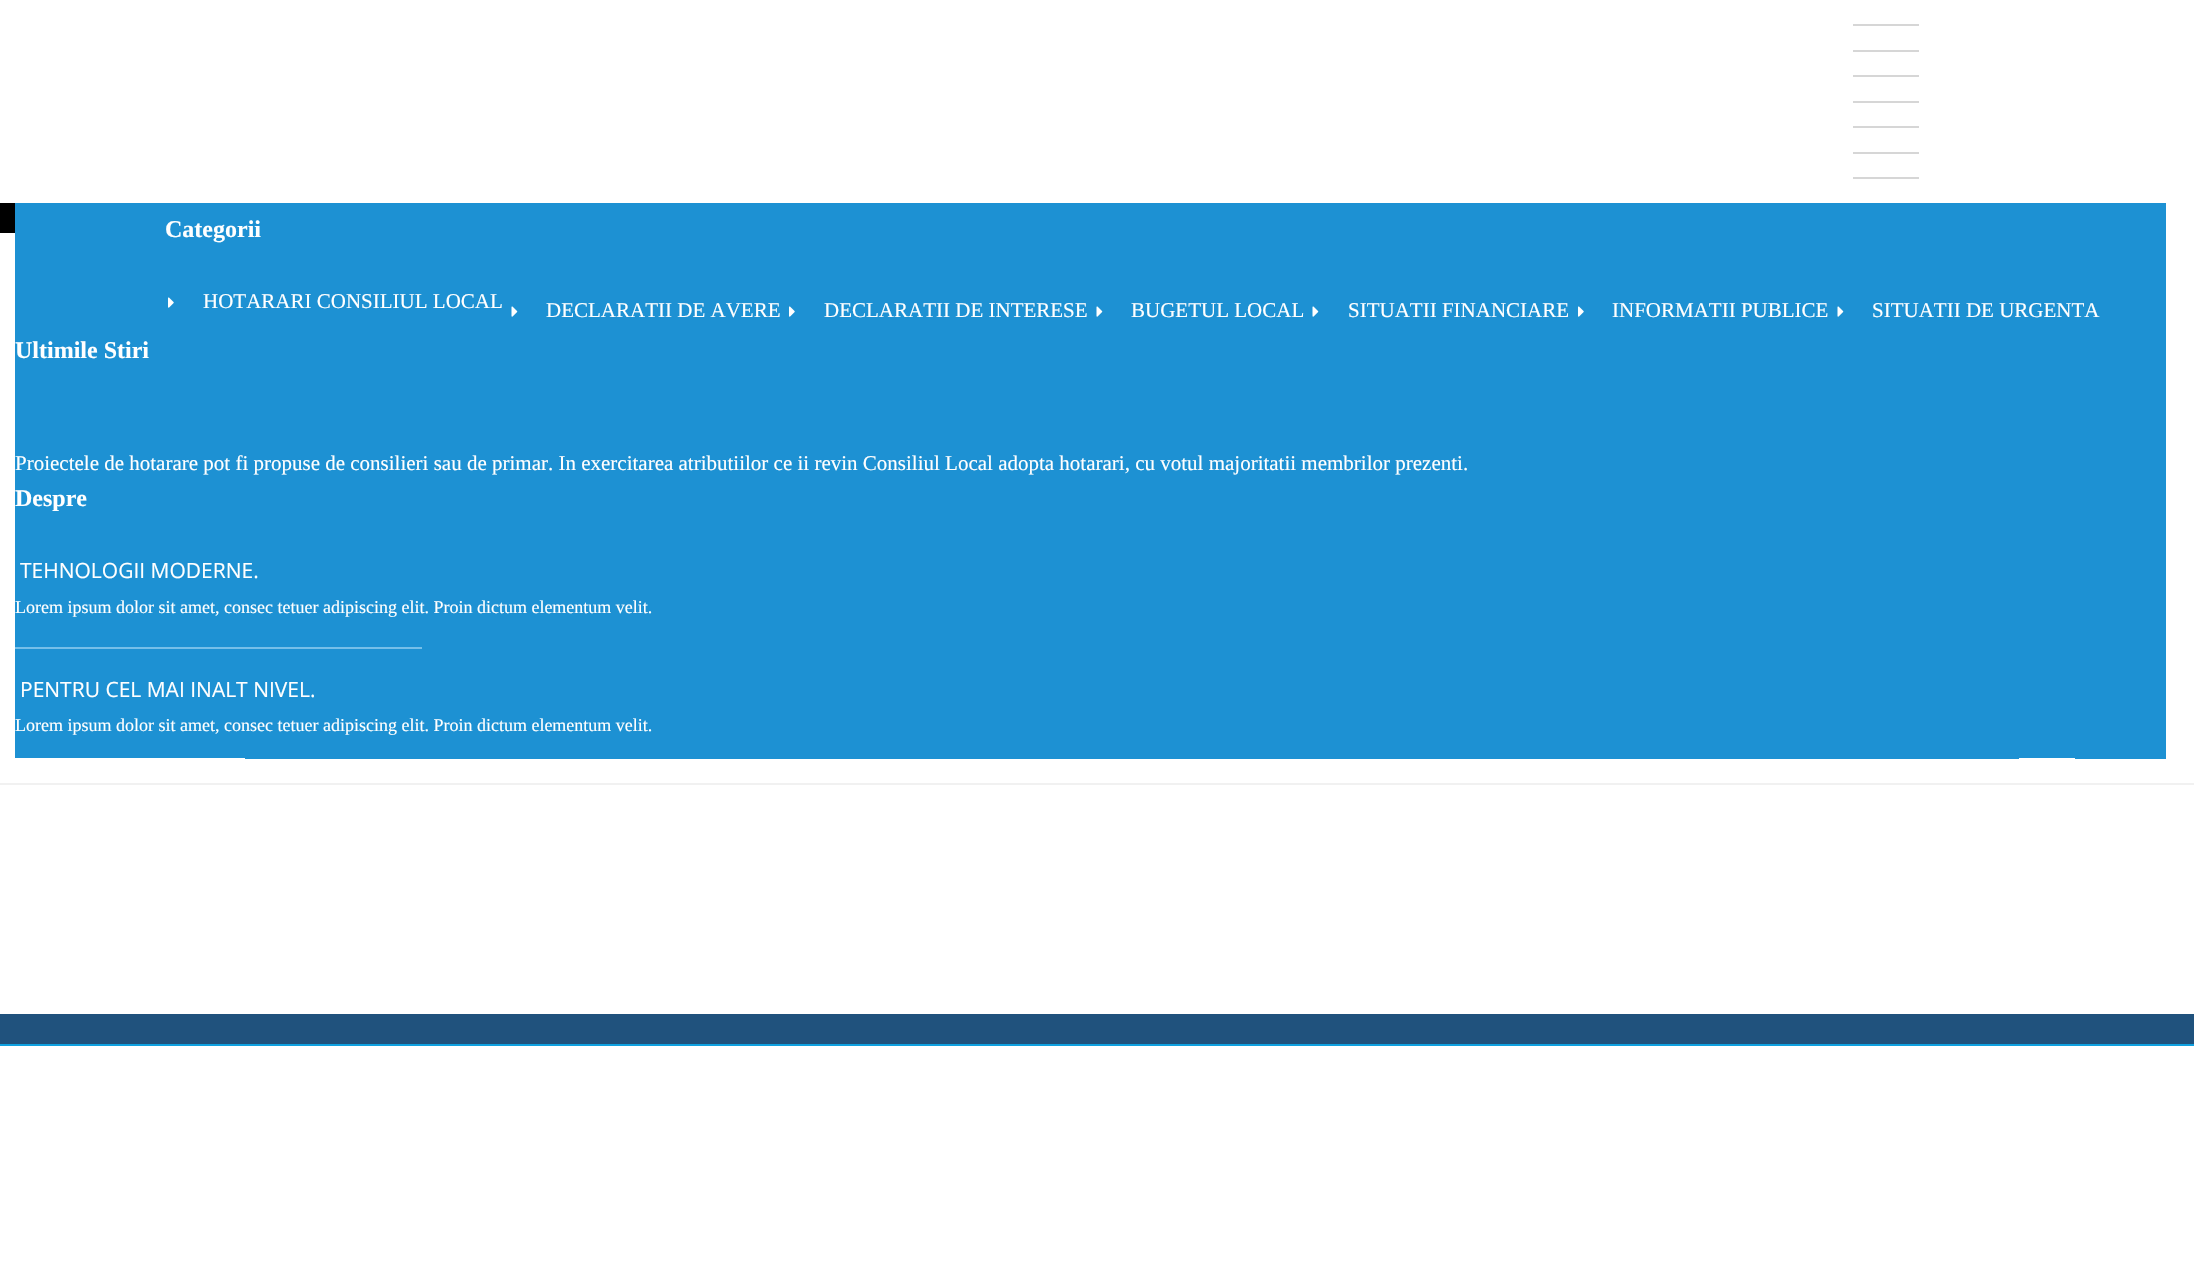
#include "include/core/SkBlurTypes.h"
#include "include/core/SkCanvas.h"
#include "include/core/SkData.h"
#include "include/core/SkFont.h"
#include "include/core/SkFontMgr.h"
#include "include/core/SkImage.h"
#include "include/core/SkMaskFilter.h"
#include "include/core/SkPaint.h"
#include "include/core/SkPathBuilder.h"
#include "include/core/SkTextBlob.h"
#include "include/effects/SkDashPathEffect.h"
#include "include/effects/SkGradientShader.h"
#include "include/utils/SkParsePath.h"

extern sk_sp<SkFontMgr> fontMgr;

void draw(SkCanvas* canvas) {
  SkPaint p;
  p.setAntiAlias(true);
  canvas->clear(SK_ColorWHITE);
  p.setColor(SkColorSetRGB(214, 214, 214));
  canvas->drawRect(SkRect::MakeLTRB(1853, 24, 1919, 26), p);
  canvas->drawRect(SkRect::MakeLTRB(1853, 50, 1919, 52), p);
  canvas->drawRect(SkRect::MakeLTRB(1853, 75, 1919, 77), p);
  canvas->drawRect(SkRect::MakeLTRB(1853, 101, 1919, 103), p);
  canvas->drawRect(SkRect::MakeLTRB(1853, 126, 1919, 128), p);
  canvas->drawRect(SkRect::MakeLTRB(1853, 152, 1919, 154), p);
  canvas->drawRect(SkRect::MakeLTRB(1853, 177, 1919, 179), p);
  p.setColor(SK_ColorBLACK);
  canvas->drawRect(SkRect::MakeLTRB(0, 203, 15, 233), p);
  p.setColor(SkColorSetRGB(29, 145, 211));
  canvas->drawRect(SkRect::MakeLTRB(15, 203, 2166, 759), p);
  canvas->drawImageRect(SkImages::DeferredFromEncodedData(SkData::MakeFromFileName("images/1.png")), SkRect::MakeLTRB(168, 297, 174, 308), SkSamplingOptions());
  canvas->drawImageRect(SkImages::DeferredFromEncodedData(SkData::MakeFromFileName("images/2.png")), SkRect::MakeLTRB(511, 306, 518, 317), SkSamplingOptions());
  canvas->drawImageRect(SkImages::DeferredFromEncodedData(SkData::MakeFromFileName("images/1.png")), SkRect::MakeLTRB(789, 306, 795, 317), SkSamplingOptions());
  canvas->drawImageRect(SkImages::DeferredFromEncodedData(SkData::MakeFromFileName("images/2.png")), SkRect::MakeLTRB(1096, 306, 1103, 317), SkSamplingOptions());
  canvas->drawImageRect(SkImages::DeferredFromEncodedData(SkData::MakeFromFileName("images/2.png")), SkRect::MakeLTRB(1312, 306, 1319, 317), SkSamplingOptions());
  canvas->drawImageRect(SkImages::DeferredFromEncodedData(SkData::MakeFromFileName("images/1.png")), SkRect::MakeLTRB(1578, 306, 1584, 317), SkSamplingOptions());
  canvas->drawImageRect(SkImages::DeferredFromEncodedData(SkData::MakeFromFileName("images/2.png")), SkRect::MakeLTRB(1837, 306, 1844, 317), SkSamplingOptions());
  p.setColor(SkColorSetRGB(117, 191, 233));
  canvas->drawRect(SkRect::MakeLTRB(15, 647, 422, 649), p);
  p.setColor(SkColorSetRGB(241, 241, 241));
  canvas->drawRect(SkRect::MakeLTRB(0, 783, 2194, 785), p);
  p.setColor(SK_ColorWHITE);
  canvas->drawRect(SkRect::MakeLTRB(15, 758, 245, 759), p);
  canvas->drawRect(SkRect::MakeLTRB(2019, 758, 2075, 759), p);
  p.setColor(SkColorSetRGB(32, 82, 125));
  canvas->drawRect(SkRect::MakeLTRB(0, 1014, 2194, 1044), p);
  p.setColor(SkColorSetRGB(15, 161, 224));
  canvas->drawRect(SkRect::MakeLTRB(0, 1044, 2194, 1046), p);
  SkFont font1(fontMgr->matchFamilyStyle("Liberation Serif", SkFontStyle::Bold()), 24);
  font1.setSubpixel(true);
  p.setColor(SK_ColorWHITE);
  canvas->drawString("Categorii", 165, 237, font1, p);
  SkFont font2(fontMgr->matchFamilyStyle("Liberation Serif", SkFontStyle::Normal()), 21);
  font2.setSubpixel(true);
  canvas->drawString("HOTARARI CONSILIUL LOCAL", 203, 308, font2, p);
  canvas->drawString("DECLARATII DE AVERE", 546, 317, font2, p);
  canvas->drawString("DECLARATII DE INTERESE", 824, 317, font2, p);
  canvas->drawString("BUGETUL LOCAL", 1131, 317, font2, p);
  canvas->drawString("SITUATII FINANCIARE", 1348, 317, font2, p);
  canvas->drawString("INFORMATII PUBLICE", 1612, 317, font2, p);
  canvas->drawString("SITUATII DE URGENTA", 1872, 317, font2, p);
  canvas->drawString("Ultimile Stiri", 15, 358, font1, p);
  canvas->drawString("Proiectele de hotarare pot fi propuse de consilieri sau de primar. In exercitarea atributiilor ce ii revin Consiliul Local adopta hotarari, cu votul majoritatii membrilor prezenti.", 15, 470, font2, p);
  canvas->drawString("Despre", 15, 506, font1, p);
  SkFont font3(fontMgr->matchFamilyStyle("Open Sans", SkFontStyle::Normal()), 21);
  font3.setSubpixel(true);
  canvas->drawString("TEHNOLOGII MODERNE.", 20, 578, font3, p);
  SkFont font4(fontMgr->matchFamilyStyle("Liberation Serif", SkFontStyle::Normal()), 18);
  font4.setSubpixel(true);
  canvas->drawString("Lorem ipsum dolor sit amet, consec tetuer adipiscing elit. Proin dictum elementum velit.", 15, 613, font4, p);
  canvas->drawString("PENTRU CEL MAI INALT NIVEL.", 20, 697, font3, p);
  canvas->drawString("Lorem ipsum dolor sit amet, consec tetuer adipiscing elit. Proin dictum elementum velit.", 15, 731, font4, p);
}
